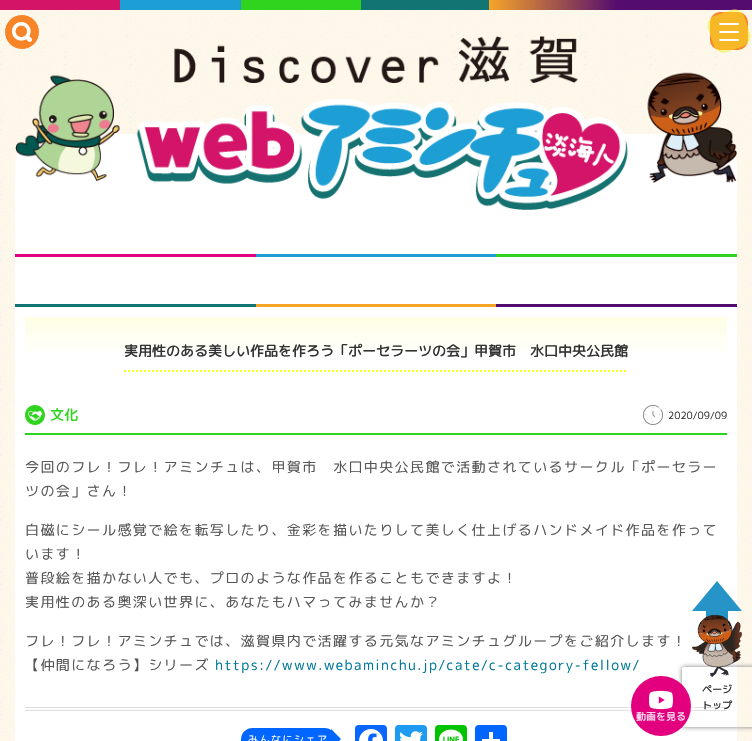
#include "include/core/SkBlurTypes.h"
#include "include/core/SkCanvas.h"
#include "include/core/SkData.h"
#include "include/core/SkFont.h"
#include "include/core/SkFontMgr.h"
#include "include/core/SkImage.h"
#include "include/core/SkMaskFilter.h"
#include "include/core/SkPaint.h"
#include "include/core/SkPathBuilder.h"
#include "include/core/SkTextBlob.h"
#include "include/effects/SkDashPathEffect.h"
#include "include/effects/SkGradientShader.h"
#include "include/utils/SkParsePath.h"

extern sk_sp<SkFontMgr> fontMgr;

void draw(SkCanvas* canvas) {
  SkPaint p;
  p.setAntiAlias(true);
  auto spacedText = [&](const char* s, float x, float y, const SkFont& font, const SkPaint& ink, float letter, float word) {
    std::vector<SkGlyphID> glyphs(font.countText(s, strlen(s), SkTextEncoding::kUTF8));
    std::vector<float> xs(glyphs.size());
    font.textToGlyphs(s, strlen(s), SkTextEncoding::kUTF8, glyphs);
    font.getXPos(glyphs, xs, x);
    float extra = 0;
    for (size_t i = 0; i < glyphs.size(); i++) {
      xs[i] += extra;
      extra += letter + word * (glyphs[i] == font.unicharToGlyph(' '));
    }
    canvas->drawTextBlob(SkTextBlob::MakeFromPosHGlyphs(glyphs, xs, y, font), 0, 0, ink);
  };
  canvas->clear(SkColorSetRGB(255, 248, 232));
  canvas->drawImageRect(SkImages::DeferredFromEncodedData(SkData::MakeFromFileName("images/1.png")), SkRect::MakeLTRB(0, 10, 752, 741), SkSamplingOptions());
  {
    const SkColor colors[] = {SkColorSetRGB(212, 20, 103), SkColorSetRGB(212, 20, 103), SkColorSetRGB(29, 158, 213), SkColorSetRGB(29, 158, 213), SkColorSetRGB(47, 212, 30), SkColorSetRGB(47, 212, 30), SkColorSetRGB(17, 118, 115), SkColorSetRGB(17, 118, 115), SkColorSetRGB(247, 165, 39), SkColorSetRGB(84, 13, 110), SkColorSetRGB(84, 13, 110)};
    const float stops[] = {0, 0.16f, 0.16f, 0.32f, 0.32f, 0.48f, 0.48f, 0.65f, 0.65f, 0.82f, 1};
    const SkPoint ends[] = {{0, 5}, {752, 5}};
    p.setShader(SkGradientShader::MakeLinear(ends, colors, stops, 11, SkTileMode::kClamp));
    p.setAlpha(255);
  }
  canvas->drawRect(SkRect::MakeLTRB(0, 0, 752, 10), p);
  p.setShader(nullptr);
  p.setColor(SK_ColorWHITE);
  canvas->drawPath(SkPathBuilder().moveTo(45, 134).lineTo(707, 134).cubicTo(723.5f, 134, 737, 147.5f, 737, 164).lineTo(737, 212).lineTo(15, 212).lineTo(15, 164).cubicTo(15, 147.5f, 28.5f, 134, 45, 134).close().detach(), p);
  canvas->drawImageRect(SkImages::DeferredFromEncodedData(SkData::MakeFromFileName("images/3.png")), SkRect::MakeLTRB(15, 36, 737, 210), SkSamplingOptions());
  p.setColor(SkColorSetRGB(247, 132, 39));
  canvas->drawCircle(22, 32, 17.5f, p);
  p.setStyle(SkPaint::kStroke_Style);
  p.setStrokeWidth(1);
  p.setColor(SK_ColorWHITE);
  canvas->drawCircle(22, 32, 17.5f, p);
  canvas->drawImageRect(SkImages::DeferredFromEncodedData(SkData::MakeFromFileName("images/2.png")), SkRect::MakeLTRB(12, 22, 32, 42), SkSamplingOptions());
  p.setStyle(SkPaint::kFill_Style);
  p.setColor(SkColorSetRGB(247, 132, 39));
  canvas->drawRoundRect(SkRect::MakeLTRB(710, 12, 748, 50), 10, 10, p);
  p.setColor(SkColorSetARGB(128, 247, 235, 39));
  canvas->drawPath(SkPathBuilder().moveTo(714, 16).lineTo(731, 10).cubicTo(736, 8, 742, 11, 744, 16).lineTo(750, 33).cubicTo(752, 38, 749, 44, 744, 46).lineTo(727, 52).cubicTo(722, 54, 716, 51, 714, 46).lineTo(708, 29).cubicTo(706, 24, 709, 18, 714, 16).close().detach(), p);
  p.setColor(SK_ColorWHITE);
  canvas->drawRoundRect(SkRect::MakeLTRB(719, 31, 739, 33), 1, 1, p);
  canvas->drawRoundRect(SkRect::MakeLTRB(719, 23, 739, 25), 1, 1, p);
  canvas->drawRoundRect(SkRect::MakeLTRB(719, 39, 739, 41), 1, 1, p);
  canvas->drawRect(SkRect::MakeLTRB(15, 212, 737, 304), p);
  p.setColor(SkColorSetRGB(227, 0, 127));
  canvas->drawRect(SkRect::MakeLTRB(15, 254, 256, 257), p);
  p.setColor(SkColorSetRGB(29, 158, 213));
  canvas->drawRect(SkRect::MakeLTRB(256, 254, 496, 257), p);
  p.setColor(SkColorSetRGB(47, 212, 30));
  canvas->drawRect(SkRect::MakeLTRB(496, 254, 737, 257), p);
  p.setColor(SkColorSetRGB(17, 118, 115));
  canvas->drawRect(SkRect::MakeLTRB(15, 304, 256, 307), p);
  p.setColor(SkColorSetRGB(247, 165, 39));
  canvas->drawRect(SkRect::MakeLTRB(256, 304, 496, 307), p);
  p.setColor(SkColorSetRGB(84, 13, 110));
  canvas->drawRect(SkRect::MakeLTRB(496, 304, 737, 307), p);
  p.setColor(SK_ColorWHITE);
  canvas->drawRect(SkRect::MakeLTRB(15, 307, 737, 741), p);
  {
    const SkColor colors[] = {SkColorSetRGB(255, 254, 228), SK_ColorWHITE};
    const float stops[] = {0, 0.5f};
    const SkPoint ends[] = {{376, 317}, {376, 397}};
    p.setShader(SkGradientShader::MakeLinear(ends, colors, stops, 2, SkTileMode::kClamp));
    p.setAlpha(255);
  }
  canvas->drawRect(SkRect::MakeLTRB(25, 317, 727, 353), p);
  p.setStyle(SkPaint::kStroke_Style);
  p.setStrokeWidth(2);
  p.setShader(nullptr);
  p.setColor(SkColorSetRGB(246, 255, 33));
  p.setPathEffect(SkDashPathEffect::Make({{2, 2}}, 0));
  canvas->drawPath(SkPathBuilder().moveTo(124, 371).lineTo(628, 371).detach(), p);
  p.setPathEffect(nullptr);
  p.setStyle(SkPaint::kFill_Style);
  p.setColor(SkColorSetRGB(47, 212, 30));
  canvas->drawRect(SkRect::MakeLTRB(25, 433, 727, 435), p);
  canvas->drawImageRect(SkImages::DeferredFromEncodedData(SkData::MakeFromFileName("images/4.png")), SkRect::MakeLTRB(25, 405, 45, 425), SkSamplingOptions());
  canvas->drawImageRect(SkImages::DeferredFromEncodedData(SkData::MakeFromFileName("images/5.png")), SkRect::MakeLTRB(643, 405, 663, 425), SkSamplingOptions());
  p.setColor(SkColorSetRGB(221, 221, 221));
  canvas->drawRect(SkRect::MakeLTRB(25, 707, 727, 708), p);
  canvas->drawRect(SkRect::MakeLTRB(25, 710, 727, 711), p);
  p.setColor(SkColorSetRGB(1, 102, 255));
  canvas->drawRoundRect(SkRect::MakeLTRB(241, 728, 336, 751), 11.5f, 11.5f, p);
  canvas->drawPath(SkPathBuilder().moveTo(331, 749).lineTo(331, 729).lineTo(341, 739).close().detach(), p);
  p.setColor(SkColorSetRGB(8, 102, 255));
  canvas->drawRoundRect(SkRect::MakeLTRB(355, 725, 387, 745), 4, 4, p);
  canvas->drawImageRect(SkImages::DeferredFromEncodedData(SkData::MakeFromFileName("images/6.png")), SkRect::MakeLTRB(359, 729, 383, 741), SkSamplingOptions());
  p.setColor(SkColorSetRGB(29, 155, 240));
  canvas->drawRoundRect(SkRect::MakeLTRB(395, 725, 427, 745), 4, 4, p);
  canvas->drawImageRect(SkImages::DeferredFromEncodedData(SkData::MakeFromFileName("images/7.png")), SkRect::MakeLTRB(400, 731, 423, 741), SkSamplingOptions());
  p.setColor(SkColorSetRGB(0, 195, 0));
  canvas->drawRoundRect(SkRect::MakeLTRB(435, 725, 467, 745), 4, 4, p);
  canvas->drawImageRect(SkImages::DeferredFromEncodedData(SkData::MakeFromFileName("images/8.png")), SkRect::MakeLTRB(439, 729, 463, 741), SkSamplingOptions());
  p.setColor(SkColorSetRGB(1, 102, 255));
  canvas->drawRoundRect(SkRect::MakeLTRB(475, 725, 507, 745), 4, 4, p);
  p.setColor(SK_ColorWHITE);
  canvas->drawRect(SkRect::MakeLTRB(489, 732, 493, 741), p);
  canvas->drawRect(SkRect::MakeLTRB(482, 739, 500, 741), p);
  p.setMaskFilter(SkMaskFilter::MakeBlur(kNormal_SkBlurStyle, 5));
  canvas->drawRoundRect(SkRect::MakeLTRB(631, 676, 691, 736), 30, 30, p);
  p.setMaskFilter(nullptr);
  canvas->save();
  canvas->clipPath(SkPathBuilder(SkPathFillType::kEvenOdd).moveTo(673, 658).lineTo(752, 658).lineTo(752, 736).lineTo(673, 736).close().moveTo(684, 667).lineTo(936, 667).cubicTo(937, 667, 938, 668, 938, 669).lineTo(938, 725).cubicTo(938, 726, 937, 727, 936, 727).lineTo(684, 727).cubicTo(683, 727, 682, 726, 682, 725).lineTo(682, 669).cubicTo(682, 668, 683, 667, 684, 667).close().detach(), true);
  p.setColor(SkColorSetRGB(128, 128, 128));
  p.setMaskFilter(SkMaskFilter::MakeBlur(kNormal_SkBlurStyle, 2.5f));
  canvas->drawRoundRect(SkRect::MakeLTRB(682, 667, 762, 727), 2, 2, p);
  p.setMaskFilter(nullptr);
  canvas->restore();
  p.setColor(SkColorSetRGB(227, 0, 127));
  canvas->drawCircle(661, 706, 30, p);
  canvas->drawImageRect(SkImages::DeferredFromEncodedData(SkData::MakeFromFileName("images/9.png")), SkRect::MakeLTRB(649, 690, 673, 710), SkSamplingOptions());
  p.setColor(SkColorSetRGB(38, 148, 199));
  canvas->drawPath(SkPathBuilder(SkPathFillType::kEvenOdd).moveTo(692, 611).lineTo(706, 611).lineTo(706, 631).lineTo(728, 631).lineTo(728, 611).lineTo(742, 611).lineTo(717, 581).close().detach(), p);
  canvas->drawImageRect(SkImages::DeferredFromEncodedData(SkData::MakeFromFileName("images/10.png")), SkRect::MakeLTRB(692, 615, 742, 677), SkSamplingOptions());
  SkFont font1(fontMgr->matchFamilyStyle("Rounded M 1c", SkFontStyle::Bold()), 14);
  font1.setSubpixel(true);
  p.setColor(SkColorSetRGB(51, 51, 51));
  canvas->drawString("実用性のある美しい作品を作ろう「ポーセラーツの会」甲賀市　水口中央公民館", 124, 356, font1, p);
  p.setColor(SkColorSetRGB(47, 212, 30));
  canvas->drawString("文化", 50, 420, font1, p);
  SkFont font2(fontMgr->matchFamilyStyle("Rounded M 1c", SkFontStyle::Normal()), 10);
  font2.setSubpixel(true);
  p.setColor(SkColorSetRGB(51, 51, 51));
  canvas->drawString("2020/09/09", 668, 419, font2, p);
  SkFont font3(fontMgr->matchFamilyStyle("Rounded M 1c", SkFontStyle::Normal()), 14);
  font3.setSubpixel(true);
  p.setColor(SkColorSetRGB(85, 85, 85));
  spacedText("今回のフレ！フレ！アミンチュは、甲賀市　水口中央公民館で活動されているサークル「ポーセラー", 25, 472, font3, p, 1.4f, 0);
  spacedText("ツの会」さん！", 25, 496, font3, p, 1.4f, 0);
  spacedText("白磁にシール感覚で絵を転写したり、金彩を描いたりして美しく仕上げるハンドメイド作品を作って", 25, 535, font3, p, 1.4f, 0);
  spacedText("います！", 25, 559, font3, p, 1.4f, 0);
  spacedText("普段絵を描かない人でも、プロのような作品を作ることもできますよ！", 25, 583, font3, p, 1.4f, 0);
  spacedText("実用性のある奥深い世界に、あなたもハマってみませんか？", 25, 607, font3, p, 1.4f, 0);
  spacedText("フレ！フレ！アミンチュでは、滋賀県内で活躍する元気なアミンチュグループをご紹介します！", 25, 646, font3, p, 1.4f, 0);
  spacedText("【仲間になろう】シリーズ", 25, 670, font3, p, 1.4f, 0);
  p.setColor(SkColorSetRGB(0, 121, 152));
  spacedText("https://www.webaminchu.jp/cate/c-category-fellow/", 215, 670, font3, p, 1.4f, 0);
  p.setColor(SK_ColorWHITE);
  spacedText("みんなにシェア", 248, 743, font2, p, 1.5f, 0);
  canvas->drawString("動画を見る", 636, 720, font2, p);
  SkFont font4(fontMgr->matchFamilyStyle("Rounded M 1c", SkFontStyle::Bold()), 10);
  font4.setSubpixel(true);
  p.setColor(SkColorSetRGB(51, 51, 51));
  canvas->drawString("ページ", 702, 693, font4, p);
  canvas->drawString("トップ", 702, 709, font4, p);
}
